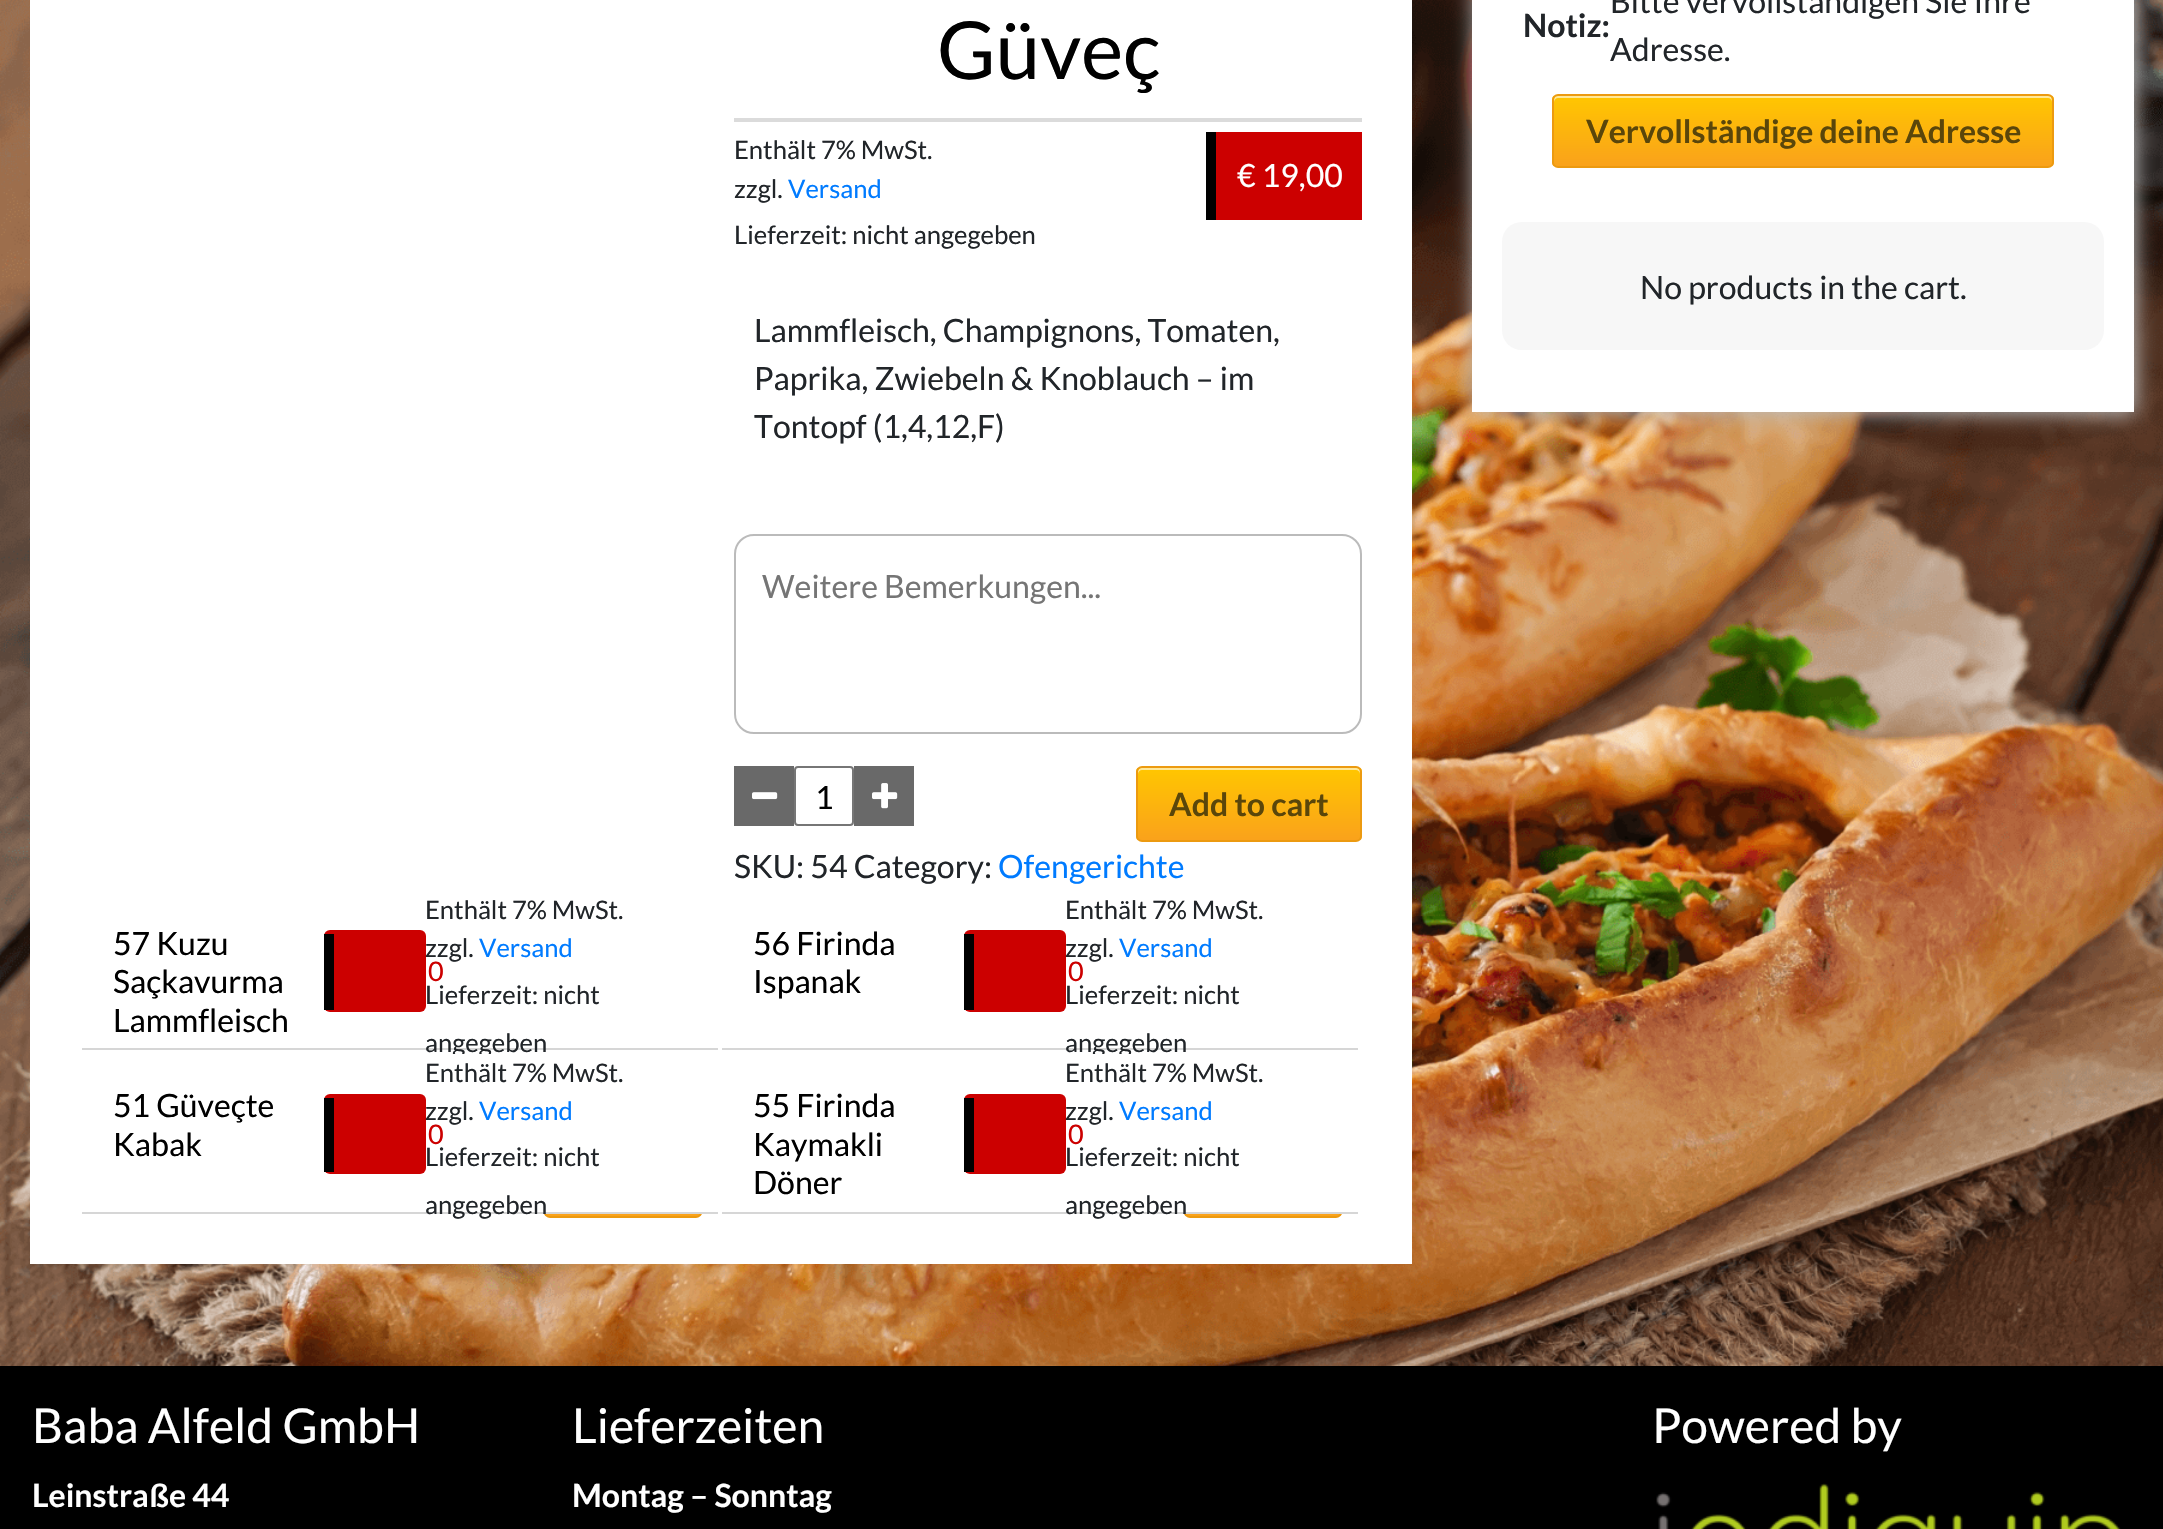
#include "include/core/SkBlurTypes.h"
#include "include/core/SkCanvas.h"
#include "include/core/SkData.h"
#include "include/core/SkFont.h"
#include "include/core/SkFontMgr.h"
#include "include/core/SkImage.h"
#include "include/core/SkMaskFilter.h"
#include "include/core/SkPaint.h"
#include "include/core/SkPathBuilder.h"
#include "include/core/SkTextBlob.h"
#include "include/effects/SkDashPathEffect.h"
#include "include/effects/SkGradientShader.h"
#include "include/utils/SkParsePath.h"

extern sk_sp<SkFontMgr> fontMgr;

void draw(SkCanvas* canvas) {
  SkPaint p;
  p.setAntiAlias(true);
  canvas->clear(SK_ColorWHITE);
  canvas->drawImageRect(SkImages::DeferredFromEncodedData(SkData::MakeFromFileName("images/1.png")), SkRect::MakeLTRB(0, 0, 2163, 1366), SkSamplingOptions());
  p.setColor(SK_ColorWHITE);
  canvas->drawRect(SkRect::MakeLTRB(30, 0, 1412, 1264), p);
  p.setColor(SkColorSetRGB(219, 219, 219));
  canvas->drawRect(SkRect::MakeLTRB(734, 118, 1362, 122), p);
  p.setColor(SkColorSetRGB(204, 0, 0));
  canvas->drawRect(SkRect::MakeLTRB(1216, 132, 1362, 220), p);
  p.setColor(SK_ColorBLACK);
  canvas->drawRect(SkRect::MakeLTRB(1206, 132, 1216, 220), p);
  p.setStyle(SkPaint::kStroke_Style);
  p.setStrokeWidth(2);
  p.setColor(SkColorSetRGB(187, 187, 187));
  canvas->drawRoundRect(SkRect::MakeLTRB(735, 535, 1361, 733), 19, 19, p);
  p.setStyle(SkPaint::kFill_Style);
  p.setColor(SkColorSetRGB(105, 105, 105));
  canvas->drawRect(SkRect::MakeLTRB(734, 766, 794, 826), p);
  canvas->drawImageRect(SkImages::DeferredFromEncodedData(SkData::MakeFromFileName("images/2.png")), SkRect::MakeLTRB(752, 792, 778, 800), SkSamplingOptions());
  p.setStyle(SkPaint::kStroke_Style);
  p.setColor(SkColorSetRGB(118, 118, 118));
  canvas->drawRoundRect(SkRect::MakeLTRB(795, 767, 853, 825), 3, 3, p);
  p.setStyle(SkPaint::kFill_Style);
  p.setColor(SkColorSetRGB(105, 105, 105));
  canvas->drawRect(SkRect::MakeLTRB(854, 766, 914, 826), p);
  canvas->drawImageRect(SkImages::DeferredFromEncodedData(SkData::MakeFromFileName("images/3.png")), SkRect::MakeLTRB(872, 783, 898, 809), SkSamplingOptions());
  canvas->save();
  canvas->clipPath(SkPathBuilder().moveTo(1142, 766).lineTo(1356, 766).cubicTo(1359.5f, 766, 1362, 768.5f, 1362, 772).lineTo(1362, 836).cubicTo(1362, 839.5f, 1359.5f, 842, 1356, 842).lineTo(1142, 842).cubicTo(1138.5f, 842, 1136, 839.5f, 1136, 836).lineTo(1136, 772).cubicTo(1136, 768.5f, 1138.5f, 766, 1142, 766).close().detach(), true);
  {
    const SkColor colors[] = {SkColorSetRGB(250, 162, 27), SkColorSetRGB(255, 198, 0)};
    const float stops[] = {0, 1};
    const SkPoint ends[] = {{1249, 840}, {1249, 768}};
    p.setShader(SkGradientShader::MakeLinear(ends, colors, stops, 2, SkTileMode::kClamp));
    p.setAlpha(255);
  }
  canvas->drawRect(SkRect::MakeLTRB(1136, 768, 1362, 840), p);
  canvas->restore();
  p.setShader(nullptr);
  p.setColor(SkColorSetRGB(255, 232, 153));
  canvas->drawPath(SkPathBuilder().moveTo(1142, 770).lineTo(1356, 770).cubicTo(1358, 770, 1360, 772, 1360, 774).cubicTo(1360, 771, 1360, 769, 1357, 768).lineTo(1141, 768).cubicTo(1138, 769, 1138, 771, 1138, 774).cubicTo(1138, 772, 1140, 770, 1142, 770).close().detach(), p);
  p.setStyle(SkPaint::kStroke_Style);
  p.setColor(SkColorSetRGB(236, 154, 16));
  canvas->drawRoundRect(SkRect::MakeLTRB(1137, 767, 1361, 841), 5, 5, p);
  p.setStyle(SkPaint::kFill_Style);
  p.setColor(SkColorSetRGB(214, 214, 214));
  canvas->drawRect(SkRect::MakeLTRB(82, 1048, 718, 1050), p);
  p.setColor(SkColorSetRGB(204, 0, 0));
  canvas->drawRoundRect(SkRect::MakeLTRB(324, 930, 426, 1012), 6, 6, p);
  p.setColor(SK_ColorBLACK);
  canvas->drawRect(SkRect::MakeLTRB(324, 934, 334, 1010), p);
  canvas->save();
  canvas->clipPath(SkPathBuilder().moveTo(550, 1142).lineTo(696, 1142).cubicTo(699.5f, 1142, 702, 1144.5f, 702, 1148).lineTo(702, 1212).cubicTo(702, 1215.5f, 699.5f, 1218, 696, 1218).lineTo(550, 1218).cubicTo(546.5f, 1218, 544, 1215.5f, 544, 1212).lineTo(544, 1148).cubicTo(544, 1144.5f, 546.5f, 1142, 550, 1142).close().detach(), true);
  {
    const SkColor colors[] = {SkColorSetRGB(250, 162, 27), SkColorSetRGB(255, 198, 0)};
    const float stops[] = {0, 1};
    const SkPoint ends[] = {{623, 1216}, {623, 1144}};
    p.setShader(SkGradientShader::MakeLinear(ends, colors, stops, 2, SkTileMode::kClamp));
    p.setAlpha(255);
  }
  canvas->drawRect(SkRect::MakeLTRB(544, 1214, 702, 1216), p);
  canvas->restore();
  p.setStyle(SkPaint::kStroke_Style);
  p.setShader(nullptr);
  p.setColor(SkColorSetRGB(236, 154, 16));
  canvas->drawRoundRect(SkRect::MakeLTRB(545, 1143, 701, 1217), 5, 5, p);
  p.setStyle(SkPaint::kFill_Style);
  p.setColor(SkColorSetRGB(214, 214, 214));
  canvas->drawRect(SkRect::MakeLTRB(722, 1048, 1358, 1050), p);
  p.setColor(SkColorSetRGB(204, 0, 0));
  canvas->drawRoundRect(SkRect::MakeLTRB(964, 930, 1066, 1012), 6, 6, p);
  p.setColor(SK_ColorBLACK);
  canvas->drawRect(SkRect::MakeLTRB(964, 934, 974, 1010), p);
  canvas->save();
  canvas->clipPath(SkPathBuilder().moveTo(1190, 1142).lineTo(1336, 1142).cubicTo(1339.5f, 1142, 1342, 1144.5f, 1342, 1148).lineTo(1342, 1212).cubicTo(1342, 1215.5f, 1339.5f, 1218, 1336, 1218).lineTo(1190, 1218).cubicTo(1186.5f, 1218, 1184, 1215.5f, 1184, 1212).lineTo(1184, 1148).cubicTo(1184, 1144.5f, 1186.5f, 1142, 1190, 1142).close().detach(), true);
  {
    const SkColor colors[] = {SkColorSetRGB(250, 162, 27), SkColorSetRGB(255, 198, 0)};
    const float stops[] = {0, 1};
    const SkPoint ends[] = {{1263, 1216}, {1263, 1144}};
    p.setShader(SkGradientShader::MakeLinear(ends, colors, stops, 2, SkTileMode::kClamp));
    p.setAlpha(255);
  }
  canvas->drawRect(SkRect::MakeLTRB(1184, 1214, 1342, 1216), p);
  canvas->restore();
  p.setStyle(SkPaint::kStroke_Style);
  p.setShader(nullptr);
  p.setColor(SkColorSetRGB(236, 154, 16));
  canvas->drawRoundRect(SkRect::MakeLTRB(1185, 1143, 1341, 1217), 5, 5, p);
  p.setStyle(SkPaint::kFill_Style);
  p.setColor(SkColorSetRGB(214, 214, 214));
  canvas->drawRect(SkRect::MakeLTRB(82, 1212, 718, 1214), p);
  p.setColor(SkColorSetRGB(204, 0, 0));
  canvas->drawRoundRect(SkRect::MakeLTRB(324, 1094, 426, 1174), 6, 6, p);
  p.setColor(SK_ColorBLACK);
  canvas->drawRect(SkRect::MakeLTRB(324, 1098, 334, 1172), p);
  p.setColor(SkColorSetRGB(214, 214, 214));
  canvas->drawRect(SkRect::MakeLTRB(722, 1212, 1358, 1214), p);
  p.setColor(SkColorSetRGB(204, 0, 0));
  canvas->drawRoundRect(SkRect::MakeLTRB(964, 1094, 1066, 1174), 6, 6, p);
  p.setColor(SK_ColorBLACK);
  canvas->drawRect(SkRect::MakeLTRB(964, 1098, 974, 1172), p);
  p.setColor(SkColorSetRGB(187, 187, 187));
  p.setMaskFilter(SkMaskFilter::MakeBlur(kNormal_SkBlurStyle, 10));
  canvas->drawRect(SkRect::MakeLTRB(1474, -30, 2136, 414), p);
  p.setMaskFilter(nullptr);
  p.setColor(SK_ColorWHITE);
  canvas->drawRect(SkRect::MakeLTRB(1472, 0, 2134, 412), p);
  canvas->save();
  canvas->clipPath(SkPathBuilder().moveTo(1558, 94).lineTo(2048, 94).cubicTo(2051.5f, 94, 2054, 96.5f, 2054, 100).lineTo(2054, 162).cubicTo(2054, 165.5f, 2051.5f, 168, 2048, 168).lineTo(1558, 168).cubicTo(1554.5f, 168, 1552, 165.5f, 1552, 162).lineTo(1552, 100).cubicTo(1552, 96.5f, 1554.5f, 94, 1558, 94).close().detach(), true);
  {
    const SkColor colors[] = {SkColorSetRGB(250, 162, 27), SkColorSetRGB(255, 198, 0)};
    const float stops[] = {0, 1};
    const SkPoint ends[] = {{1803, 166}, {1803, 96}};
    p.setShader(SkGradientShader::MakeLinear(ends, colors, stops, 2, SkTileMode::kClamp));
    p.setAlpha(255);
  }
  canvas->drawRect(SkRect::MakeLTRB(1552, 96, 2054, 166), p);
  canvas->restore();
  p.setShader(nullptr);
  p.setColor(SkColorSetRGB(255, 232, 153));
  canvas->drawPath(SkPathBuilder().moveTo(1558, 98).lineTo(2048, 98).cubicTo(2050, 98, 2052, 100, 2052, 102).cubicTo(2052, 99, 2052, 96, 2048, 96).lineTo(1558, 96).cubicTo(1554, 96, 1554, 99, 1554, 102).cubicTo(1554, 100, 1556, 98, 1558, 98).close().detach(), p);
  p.setStyle(SkPaint::kStroke_Style);
  p.setColor(SkColorSetRGB(236, 154, 16));
  canvas->drawRoundRect(SkRect::MakeLTRB(1553, 95, 2053, 167), 5, 5, p);
  p.setStyle(SkPaint::kFill_Style);
  p.setColor(SkColorSetRGB(247, 247, 247));
  canvas->drawRoundRect(SkRect::MakeLTRB(1502, 222, 2104, 350), 20, 20, p);
  p.setColor(SK_ColorBLACK);
  canvas->drawRect(SkRect::MakeLTRB(0, 1366, 2163, 1529), p);
  canvas->drawImageRect(SkImages::DeferredFromEncodedData(SkData::MakeFromFileName("images/4.png")), SkRect::MakeLTRB(1656, 1483, 2121, 1529), SkSamplingOptions());
  SkFont font1(fontMgr->matchFamilyStyle("Lato", SkFontStyle::Normal()), 80);
  font1.setSubpixel(true);
  canvas->drawString("Güveç", 937, 79, font1, p);
  SkFont font2(fontMgr->matchFamilyStyle("Lato", SkFontStyle::Normal()), 25.6f);
  font2.setSubpixel(true);
  p.setColor(SkColorSetRGB(33, 37, 41));
  canvas->drawString("Enthält 7% MwSt.", 734, 159, font2, p);
  canvas->drawString("zzgl.", 734, 198, font2, p);
  p.setColor(SkColorSetRGB(0, 123, 255));
  canvas->drawString("Versand", 788, 198, font2, p);
  SkFont font3(fontMgr->matchFamilyStyle("Lato", SkFontStyle::Normal()), 32);
  font3.setSubpixel(true);
  p.setColor(SK_ColorWHITE);
  canvas->drawString("€ 19,00", 1237, 187, font3, p);
  p.setColor(SkColorSetRGB(33, 37, 41));
  canvas->drawString("Lieferzeit: nicht angegeben", 734, 244, font2, p);
  canvas->drawString("Lammfleisch, Champignons, Tomaten,", 754, 342, font3, p);
  canvas->drawString("Paprika, Zwiebeln & Knoblauch – im", 754, 390, font3, p);
  canvas->drawString("Tontopf (1,4,12,F)", 754, 438, font3, p);
  p.setColor(SkColorSetRGB(117, 117, 117));
  canvas->drawString("Weitere Bemerkungen...", 762, 598, font3, p);
  p.setColor(SK_ColorBLACK);
  canvas->drawString("1", 815, 809, font3, p);
  SkFont font4(fontMgr->matchFamilyStyle("Lato", SkFontStyle::Bold()), 32);
  font4.setSubpixel(true);
  p.setColor(SkColorSetRGB(90, 70, 10));
  canvas->drawString("Add to cart", 1169, 816, font4, p);
  p.setColor(SkColorSetRGB(33, 37, 41));
  canvas->drawString("SKU: 54 Category:", 734, 878, font3, p);
  p.setColor(SkColorSetRGB(0, 123, 255));
  canvas->drawString("Ofengerichte", 998, 878, font3, p);
  p.setColor(SkColorSetRGB(33, 37, 41));
  canvas->drawString("Enthält 7% MwSt.", 425, 919, font2, p);
  p.setColor(SK_ColorBLACK);
  canvas->drawString("57 Kuzu", 113, 955, font3, p);
  canvas->drawString("Saçkavurma", 113, 993, font3, p);
  canvas->drawString("Lammfleisch", 113, 1032, font3, p);
  p.setColor(SkColorSetRGB(33, 37, 41));
  canvas->drawString("zzgl.", 425, 957, font2, p);
  p.setColor(SkColorSetRGB(0, 123, 255));
  canvas->drawString("Versand", 479, 957, font2, p);
  SkFont font5(fontMgr->matchFamilyStyle("Lato", SkFontStyle::Normal()), 27);
  font5.setSubpixel(true);
  p.setColor(SkColorSetRGB(204, 0, 0));
  canvas->drawString("0", 428, 981, font5, p);
  p.setColor(SkColorSetRGB(33, 37, 41));
  canvas->drawString("Lieferzeit: nicht", 425, 1004, font2, p);
  canvas->drawString("angegeben", 425, 1052, font2, p);
  canvas->drawString("Enthält 7% MwSt.", 1065, 919, font2, p);
  p.setColor(SK_ColorBLACK);
  canvas->drawString("56 Firinda", 753, 955, font3, p);
  canvas->drawString("Ispanak", 753, 993, font3, p);
  p.setColor(SkColorSetRGB(33, 37, 41));
  canvas->drawString("zzgl.", 1065, 957, font2, p);
  p.setColor(SkColorSetRGB(0, 123, 255));
  canvas->drawString("Versand", 1119, 957, font2, p);
  p.setColor(SkColorSetRGB(204, 0, 0));
  canvas->drawString("0", 1068, 981, font5, p);
  p.setColor(SkColorSetRGB(33, 37, 41));
  canvas->drawString("Lieferzeit: nicht", 1065, 1004, font2, p);
  canvas->drawString("angegeben", 1065, 1052, font2, p);
  p.setColor(SK_ColorWHITE);
  canvas->drawRect(SkRect::MakeLTRB(453, 1054, 702, 1212), p);
  p.setColor(SkColorSetRGB(33, 37, 41));
  canvas->drawString("Enthält 7% MwSt.", 425, 1082, font2, p);
  p.setColor(SK_ColorBLACK);
  canvas->drawString("51 Güveçte", 113, 1117, font3, p);
  canvas->drawString("Kabak", 113, 1156, font3, p);
  p.setColor(SkColorSetRGB(33, 37, 41));
  canvas->drawString("zzgl.", 425, 1120, font2, p);
  p.setColor(SkColorSetRGB(0, 123, 255));
  canvas->drawString("Versand", 479, 1120, font2, p);
  p.setColor(SkColorSetRGB(204, 0, 0));
  canvas->drawString("0", 428, 1144, font5, p);
  p.setColor(SkColorSetRGB(33, 37, 41));
  canvas->drawString("Lieferzeit: nicht", 425, 1166, font2, p);
  canvas->drawString("angegeben", 425, 1214, font2, p);
  p.setColor(SK_ColorWHITE);
  canvas->drawRect(SkRect::MakeLTRB(1093, 1054, 1342, 1212), p);
  p.setColor(SkColorSetRGB(33, 37, 41));
  canvas->drawString("Enthält 7% MwSt.", 1065, 1082, font2, p);
  p.setColor(SK_ColorBLACK);
  canvas->drawString("55 Firinda", 753, 1117, font3, p);
  canvas->drawString("Kaymakli", 753, 1156, font3, p);
  canvas->drawString("Döner", 753, 1194, font3, p);
  p.setColor(SkColorSetRGB(33, 37, 41));
  canvas->drawString("zzgl.", 1065, 1120, font2, p);
  p.setColor(SkColorSetRGB(0, 123, 255));
  canvas->drawString("Versand", 1119, 1120, font2, p);
  p.setColor(SkColorSetRGB(204, 0, 0));
  canvas->drawString("0", 1068, 1144, font5, p);
  p.setColor(SkColorSetRGB(33, 37, 41));
  canvas->drawString("Lieferzeit: nicht", 1065, 1166, font2, p);
  canvas->drawString("angegeben", 1065, 1214, font2, p);
  canvas->drawString("Bitte vervollständigen Sie Ihre", 1610, 13, font3, p);
  canvas->drawString("Notiz:", 1523, 37, font4, p);
  canvas->drawString("Adresse.", 1610, 61, font3, p);
  p.setColor(SkColorSetRGB(90, 70, 10));
  canvas->drawString("Vervollständige deine Adresse", 1586, 143, font4, p);
  p.setColor(SkColorSetRGB(33, 37, 41));
  canvas->drawString("No products in the cart.", 1640, 299, font3, p);
  SkFont font6(fontMgr->matchFamilyStyle("Lato", SkFontStyle::Normal()), 48);
  font6.setSubpixel(true);
  p.setColor(SK_ColorWHITE);
  canvas->drawString("Baba Alfeld GmbH", 32, 1443, font6, p);
  canvas->drawString("Leinstraße 44", 32, 1507, font4, p);
  canvas->drawString("Lieferzeiten", 572, 1443, font6, p);
  canvas->drawString("Montag – Sonntag", 572, 1507, font4, p);
  canvas->drawString("Powered by", 1652, 1443, font6, p);
}
